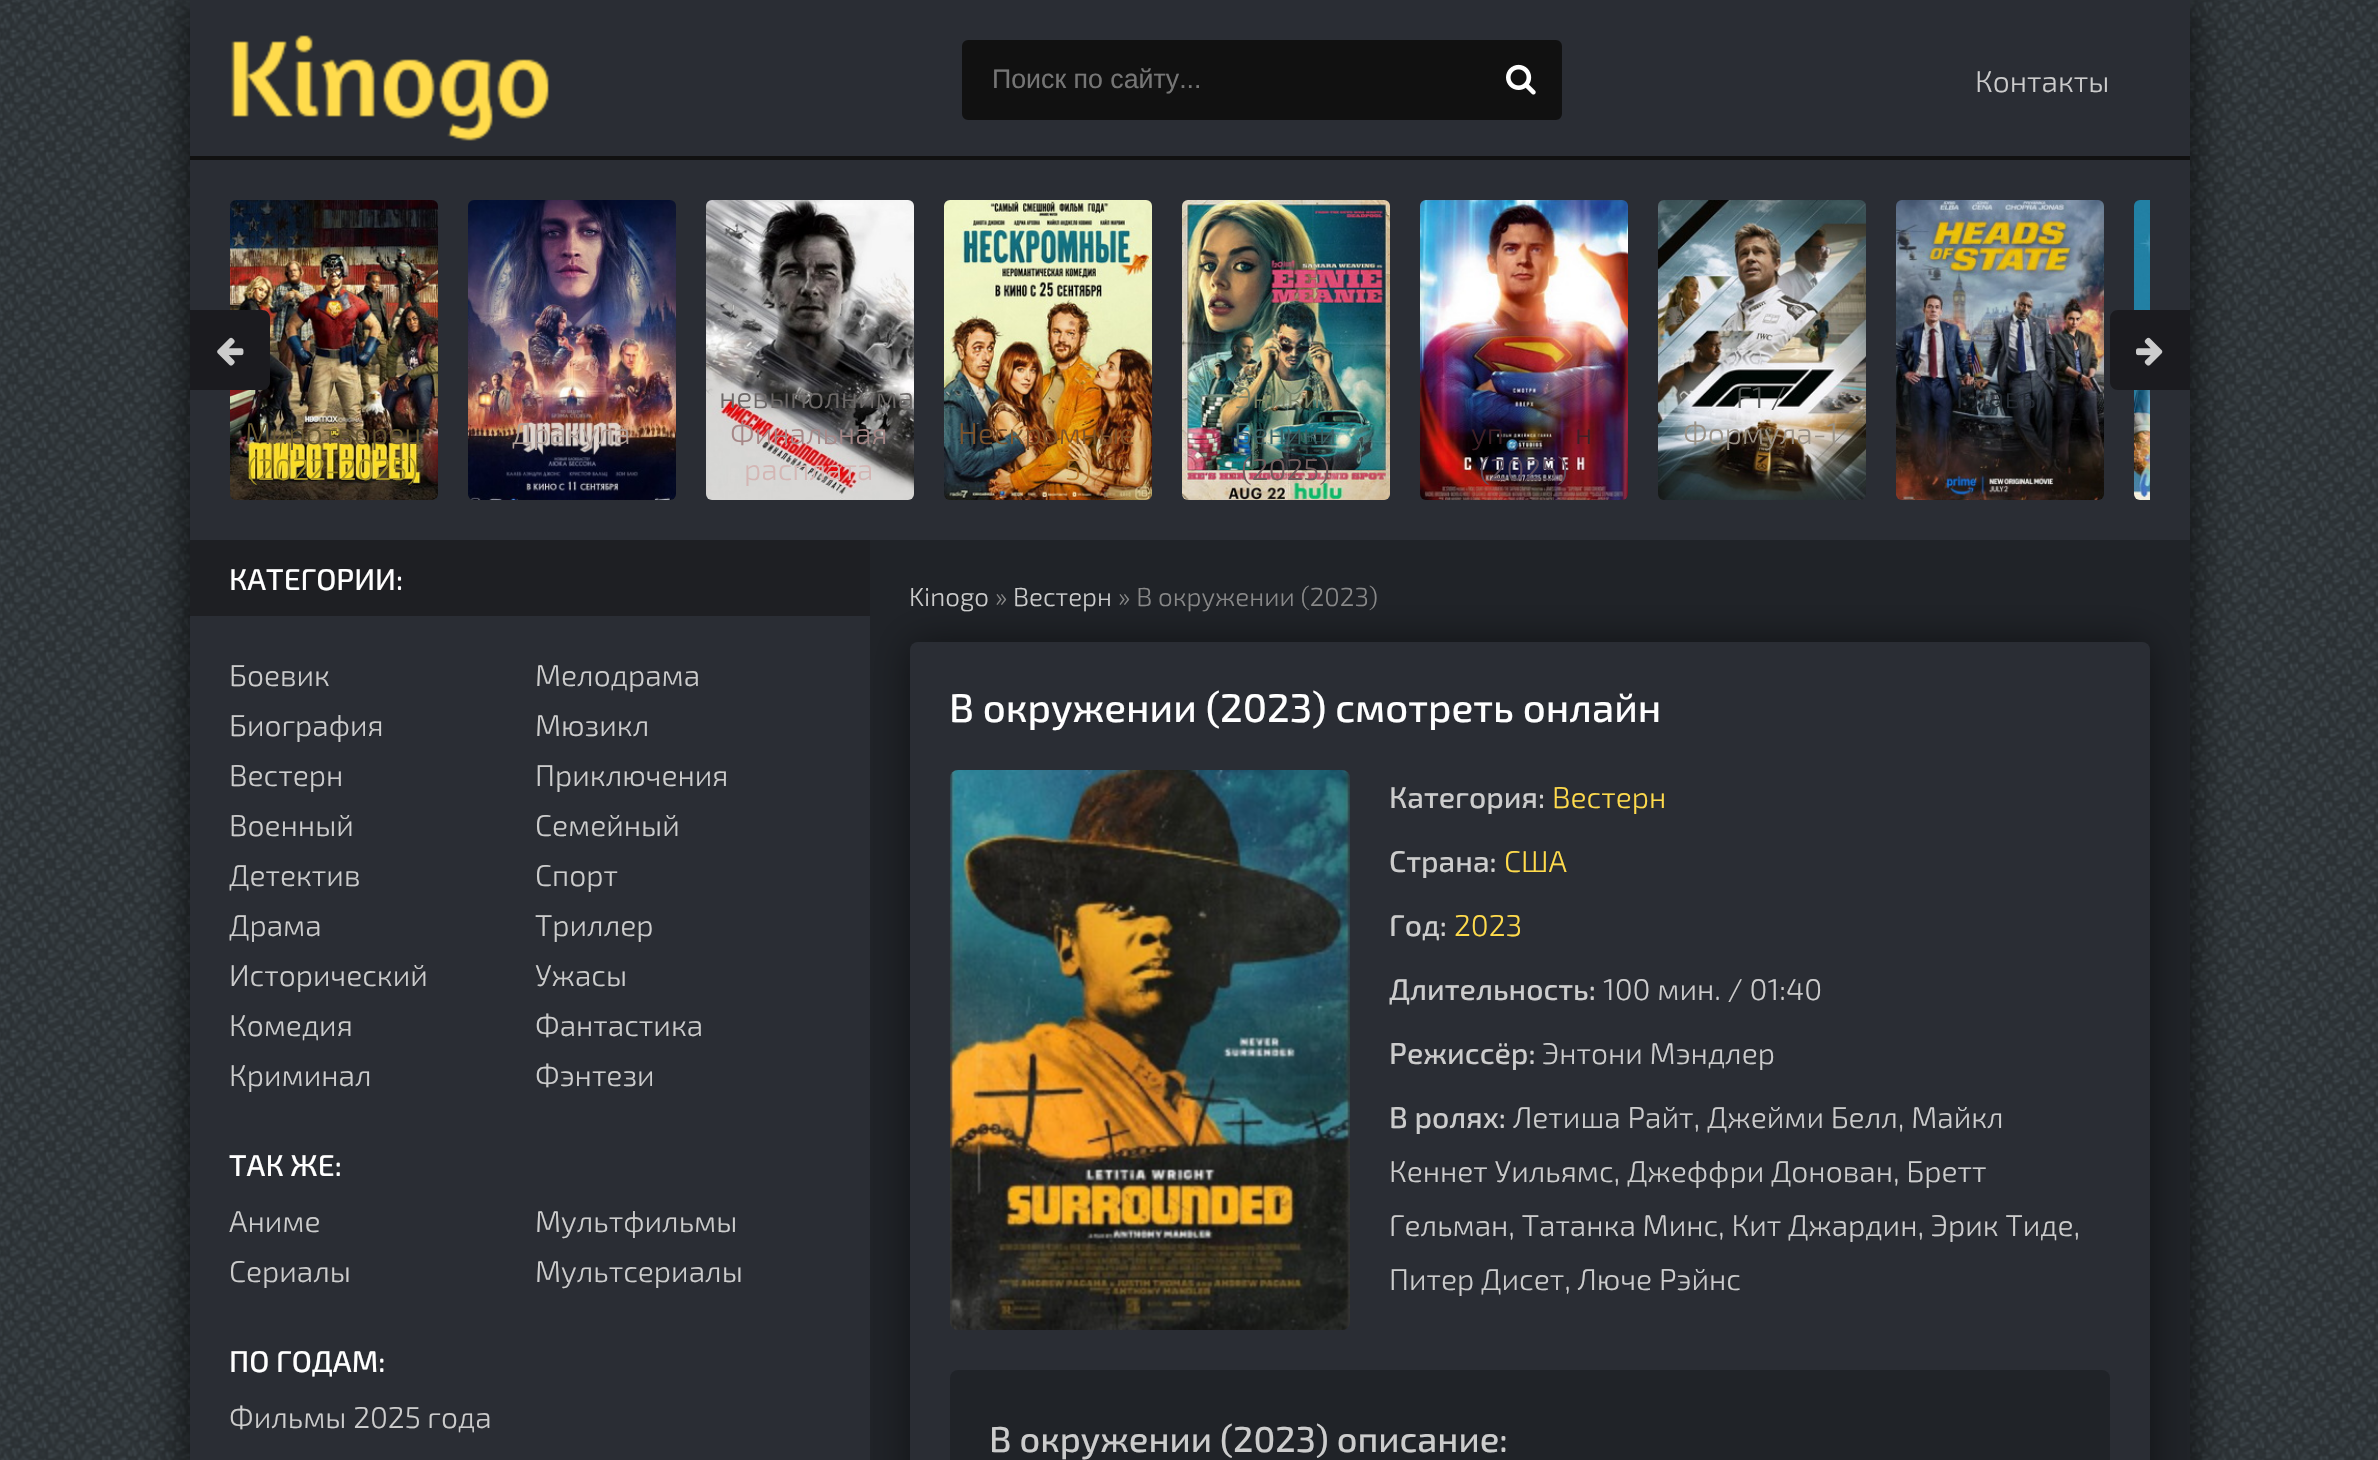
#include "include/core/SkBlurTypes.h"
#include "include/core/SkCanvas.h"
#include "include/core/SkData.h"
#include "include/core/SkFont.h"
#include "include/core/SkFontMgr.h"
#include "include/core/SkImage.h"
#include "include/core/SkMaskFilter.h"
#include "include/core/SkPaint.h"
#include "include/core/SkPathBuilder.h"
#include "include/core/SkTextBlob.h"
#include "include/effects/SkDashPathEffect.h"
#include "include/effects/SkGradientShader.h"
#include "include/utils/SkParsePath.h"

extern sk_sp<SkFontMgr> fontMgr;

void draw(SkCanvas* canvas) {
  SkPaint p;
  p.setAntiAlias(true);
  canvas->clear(SK_ColorWHITE);
  canvas->drawImageRect(SkImages::DeferredFromEncodedData(SkData::MakeFromFileName("images/1.png")), SkRect::MakeLTRB(0, 0, 2378, 1460), SkSamplingOptions());
  p.setColor(SkColorSetARGB(204, 0, 0, 0));
  p.setMaskFilter(SkMaskFilter::MakeBlur(kNormal_SkBlurStyle, 20));
  canvas->drawRect(SkRect::MakeLTRB(190, 0, 2190, 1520), p);
  p.setMaskFilter(nullptr);
  p.setColor(SkColorSetRGB(32, 35, 40));
  canvas->drawRect(SkRect::MakeLTRB(870, 540, 2190, 1460), p);
  p.setColor(SkColorSetRGB(42, 45, 52));
  canvas->drawRect(SkRect::MakeLTRB(190, 0, 2190, 156), p);
  p.setColor(SkColorSetRGB(17, 17, 17));
  canvas->drawRect(SkRect::MakeLTRB(190, 156, 2190, 160), p);
  canvas->drawImageRect(SkImages::DeferredFromEncodedData(SkData::MakeFromFileName("images/2.png")), SkRect::MakeLTRB(231, 35, 549, 141), SkSamplingOptions());
  canvas->drawRoundRect(SkRect::MakeLTRB(963, 41, 1561, 119), 5, 5, p);
  p.setStyle(SkPaint::kStroke_Style);
  p.setStrokeWidth(2);
  canvas->drawRoundRect(SkRect::MakeLTRB(963, 41, 1561, 119), 5, 5, p);
  canvas->drawImageRect(SkImages::DeferredFromEncodedData(SkData::MakeFromFileName("images/3.png")), SkRect::MakeLTRB(1506, 64, 1536, 95), SkSamplingOptions());
  p.setStyle(SkPaint::kFill_Style);
  p.setColor(SkColorSetRGB(42, 45, 52));
  canvas->drawRect(SkRect::MakeLTRB(190, 160, 2190, 540), p);
  canvas->drawImageRect(SkImages::DeferredFromEncodedData(SkData::MakeFromFileName("images/6.png")), SkRect::MakeLTRB(230, 200, 438, 500), SkSamplingOptions());
  p.setColor(SkColorSetRGB(27, 27, 31));
  canvas->drawPath(SkPathBuilder().moveTo(190, 310).lineTo(262, 310).cubicTo(266.5f, 310, 270, 313.5f, 270, 318).lineTo(270, 382).cubicTo(270, 386.5f, 266.5f, 390, 262, 390).lineTo(190, 390).close().detach(), p);
  canvas->drawImageRect(SkImages::DeferredFromEncodedData(SkData::MakeFromFileName("images/4.png")), SkRect::MakeLTRB(217, 337, 244, 366), SkSamplingOptions());
  canvas->drawImageRect(SkImages::DeferredFromEncodedData(SkData::MakeFromFileName("images/14.png")), SkRect::MakeLTRB(2134, 200, 2150, 500), SkSamplingOptions());
  canvas->drawPath(SkPathBuilder().moveTo(2118, 310).lineTo(2190, 310).lineTo(2190, 390).lineTo(2118, 390).cubicTo(2113.5f, 390, 2110, 386.5f, 2110, 382).lineTo(2110, 318).cubicTo(2110, 313.5f, 2113.5f, 310, 2118, 310).close().detach(), p);
  canvas->drawImageRect(SkImages::DeferredFromEncodedData(SkData::MakeFromFileName("images/5.png")), SkRect::MakeLTRB(2136, 337, 2163, 366), SkSamplingOptions());
  canvas->drawImageRect(SkImages::DeferredFromEncodedData(SkData::MakeFromFileName("images/7.png")), SkRect::MakeLTRB(468, 200, 676, 500), SkSamplingOptions());
  canvas->drawImageRect(SkImages::DeferredFromEncodedData(SkData::MakeFromFileName("images/8.png")), SkRect::MakeLTRB(706, 200, 914, 500), SkSamplingOptions());
  canvas->drawImageRect(SkImages::DeferredFromEncodedData(SkData::MakeFromFileName("images/9.png")), SkRect::MakeLTRB(944, 200, 1152, 500), SkSamplingOptions());
  canvas->drawImageRect(SkImages::DeferredFromEncodedData(SkData::MakeFromFileName("images/10.png")), SkRect::MakeLTRB(1182, 200, 1390, 500), SkSamplingOptions());
  canvas->drawImageRect(SkImages::DeferredFromEncodedData(SkData::MakeFromFileName("images/11.png")), SkRect::MakeLTRB(1420, 200, 1628, 500), SkSamplingOptions());
  canvas->drawImageRect(SkImages::DeferredFromEncodedData(SkData::MakeFromFileName("images/12.png")), SkRect::MakeLTRB(1658, 200, 1866, 500), SkSamplingOptions());
  canvas->drawImageRect(SkImages::DeferredFromEncodedData(SkData::MakeFromFileName("images/13.png")), SkRect::MakeLTRB(1896, 200, 2104, 500), SkSamplingOptions());
  p.setColor(SkColorSetARGB(128, 0, 0, 0));
  p.setMaskFilter(SkMaskFilter::MakeBlur(kNormal_SkBlurStyle, 20));
  canvas->drawRoundRect(SkRect::MakeLTRB(910, 642, 2150, 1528), 8, 8, p);
  p.setMaskFilter(nullptr);
  p.setColor(SkColorSetRGB(30, 31, 35));
  canvas->drawRect(SkRect::MakeLTRB(190, 540, 870, 616), p);
  p.setColor(SkColorSetRGB(42, 45, 52));
  canvas->drawRoundRect(SkRect::MakeLTRB(910, 642, 2150, 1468), 8, 8, p);
  canvas->drawImageRect(SkImages::DeferredFromEncodedData(SkData::MakeFromFileName("images/15.png")), SkRect::MakeLTRB(950, 770, 1350, 1330), SkSamplingOptions());
  p.setColor(SkColorSetRGB(32, 35, 40));
  canvas->drawRoundRect(SkRect::MakeLTRB(950, 1370, 2110, 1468), 8, 8, p);
  p.setColor(SkColorSetRGB(42, 45, 52));
  canvas->drawRect(SkRect::MakeLTRB(190, 616, 870, 1460), p);
  SkFont font1(fontMgr->matchFamilyStyle("Liberation Sans", SkFontStyle::Normal()), 26.75f);
  font1.setSubpixel(true);
  p.setColor(SkColorSetRGB(117, 117, 117));
  canvas->drawString("Поиск по сайту...", 992, 88, font1, p);
  SkFont font2(fontMgr->matchFamilyStyle("Exo 2", SkFontStyle(300, SkFontStyle::kNormal_Width, SkFontStyle::kUpright_Slant)), 30);
  font2.setSubpixel(true);
  p.setColor(SkColorSetRGB(204, 204, 204));
  canvas->drawString("Контакты", 1975, 92, font2, p);
  p.setColor(SkColorSetRGB(100, 86, 49));
  canvas->drawString("Миротворец", 245, 444, font2, p);
  p.setColor(SkColorSetRGB(162, 143, 38));
  canvas->drawString("(2022-2025)", 247, 480, font2, p);
  p.setColor(SkColorSetRGB(176, 159, 153));
  canvas->drawString("Дракула", 512, 444, font2, p);
  p.setColor(SkColorSetRGB(109, 105, 104));
  canvas->drawString("невыполнима", 719, 408, font2, p);
  p.setColor(SkColorSetRGB(166, 135, 135));
  canvas->drawString("Финальная", 730, 444, font2, p);
  p.setColor(SkColorSetRGB(211, 182, 180));
  canvas->drawString("расплата", 744, 480, font2, p);
  p.setColor(SkColorSetRGB(126, 84, 43));
  canvas->drawString("Нескромные", 958, 444, font2, p);
  p.setColor(SkColorSetRGB(187, 126, 50));
  canvas->drawString("5)", 1065, 480, font2, p);
  p.setColor(SkColorSetRGB(125, 131, 103));
  canvas->drawString("Эники-", 1235, 408, font2, p);
  p.setColor(SkColorSetRGB(60, 98, 102));
  canvas->drawString("Беники", 1234, 444, font2, p);
  p.setColor(SkColorSetRGB(115, 94, 95));
  canvas->drawString("(2025)", 1241, 480, font2, p);
  p.setColor(SkColorSetRGB(62, 31, 38));
  canvas->drawString("уп", 1471, 444, font2, p);
  canvas->drawString("н", 1575, 444, font2, p);
  p.setColor(SkColorSetRGB(95, 79, 94));
  canvas->drawString("(2025)", 1479, 480, font2, p);
  p.setColor(SkColorSetRGB(86, 89, 88));
  canvas->drawString("F1 /", 1736, 408, font2, p);
  p.setColor(SkColorSetRGB(153, 145, 134));
  canvas->drawString("Формула-1", 1683, 444, font2, p);
  p.setColor(SkColorSetRGB(37, 42, 49));
  canvas->drawString("Главы", 1956, 408, font2, p);
  SkFont font3(fontMgr->matchFamilyStyle("Exo 2", SkFontStyle(500, SkFontStyle::kNormal_Width, SkFontStyle::kUpright_Slant)), 30);
  font3.setSubpixel(true);
  p.setColor(SK_ColorWHITE);
  canvas->drawString("КАТЕГОРИИ:", 229, 590, font3, p);
  p.setColor(SkColorSetRGB(204, 204, 204));
  canvas->drawString("Боевик", 229, 686, font2, p);
  canvas->drawString("Биография", 229, 736, font2, p);
  canvas->drawString("Вестерн", 229, 786, font2, p);
  canvas->drawString("Военный", 229, 836, font2, p);
  canvas->drawString("Детектив", 229, 886, font2, p);
  canvas->drawString("Драма", 229, 936, font2, p);
  canvas->drawString("Исторический", 229, 986, font2, p);
  canvas->drawString("Комедия", 229, 1036, font2, p);
  canvas->drawString("Криминал", 229, 1086, font2, p);
  canvas->drawString("Мелодрама", 535, 686, font2, p);
  canvas->drawString("Мюзикл", 535, 736, font2, p);
  canvas->drawString("Приключения", 535, 786, font2, p);
  canvas->drawString("Семейный", 535, 836, font2, p);
  canvas->drawString("Cпорт", 535, 886, font2, p);
  canvas->drawString("Триллер", 535, 936, font2, p);
  canvas->drawString("Ужасы", 535, 986, font2, p);
  canvas->drawString("Фантастика", 535, 1036, font2, p);
  canvas->drawString("Фэнтези", 535, 1086, font2, p);
  p.setColor(SK_ColorWHITE);
  canvas->drawString("ТАК ЖЕ:", 229, 1176, font3, p);
  p.setColor(SkColorSetRGB(204, 204, 204));
  canvas->drawString("Аниме", 229, 1232, font2, p);
  canvas->drawString("Сериалы", 229, 1282, font2, p);
  canvas->drawString("Мультфильмы", 535, 1232, font2, p);
  canvas->drawString("Мультсериалы", 535, 1282, font2, p);
  p.setColor(SK_ColorWHITE);
  canvas->drawString("ПО ГОДАМ:", 229, 1372, font3, p);
  p.setColor(SkColorSetRGB(204, 204, 204));
  canvas->drawString("Фильмы 2025 года", 229, 1428, font2, p);
  SkFont font4(fontMgr->matchFamilyStyle("Exo 2", SkFontStyle(300, SkFontStyle::kNormal_Width, SkFontStyle::kUpright_Slant)), 26);
  font4.setSubpixel(true);
  canvas->drawString("Kinogo", 909, 606, font4, p);
  p.setColor(SkColorSetRGB(136, 136, 136));
  canvas->drawString("»", 995, 606, font4, p);
  p.setColor(SkColorSetRGB(204, 204, 204));
  canvas->drawString("Вестерн", 1013, 606, font4, p);
  p.setColor(SkColorSetRGB(136, 136, 136));
  canvas->drawString("» В окружении (2023)", 1118, 606, font4, p);
  SkFont font5(fontMgr->matchFamilyStyle("Exo 2", SkFontStyle(500, SkFontStyle::kNormal_Width, SkFontStyle::kUpright_Slant)), 40);
  font5.setSubpixel(true);
  p.setColor(SK_ColorWHITE);
  canvas->drawString("В окружении (2023) смотреть онлайн", 949, 722, font5, p);
  p.setColor(SkColorSetRGB(204, 204, 204));
  canvas->drawString("Категория:", 1389, 808, font3, p);
  p.setColor(SkColorSetRGB(255, 219, 76));
  canvas->drawString("Вестерн", 1552, 808, font2, p);
  p.setColor(SkColorSetRGB(204, 204, 204));
  canvas->drawString("Страна:", 1389, 872, font3, p);
  p.setColor(SkColorSetRGB(255, 219, 76));
  canvas->drawString("США", 1504, 872, font2, p);
  p.setColor(SkColorSetRGB(204, 204, 204));
  canvas->drawString("Год:", 1389, 936, font3, p);
  p.setColor(SkColorSetRGB(255, 219, 76));
  canvas->drawString("2023", 1454, 936, font2, p);
  p.setColor(SkColorSetRGB(204, 204, 204));
  canvas->drawString("Длительность:", 1389, 1000, font3, p);
  canvas->drawString("100 мин. / 01:40", 1603, 1000, font2, p);
  canvas->drawString("Режиссёр:", 1389, 1064, font3, p);
  canvas->drawString("Энтони Мэндлер", 1542, 1064, font2, p);
  canvas->drawString("В ролях:", 1389, 1128, font3, p);
  canvas->drawString("Летиша Райт, Джейми Белл, Майкл", 1513, 1128, font2, p);
  canvas->drawString("Кеннет Уильямс, Джеффри Донован, Бретт", 1389, 1182, font2, p);
  canvas->drawString("Гельман, Татанка Минс, Кит Джардин, Эрик Тиде,", 1389, 1236, font2, p);
  canvas->drawString("Питер Дисет, Люче Рэйнс", 1389, 1290, font2, p);
  SkFont font6(fontMgr->matchFamilyStyle("Exo 2", SkFontStyle(500, SkFontStyle::kNormal_Width, SkFontStyle::kUpright_Slant)), 36);
  font6.setSubpixel(true);
  canvas->drawString("В окружении (2023) описание:", 989, 1452, font6, p);
}
